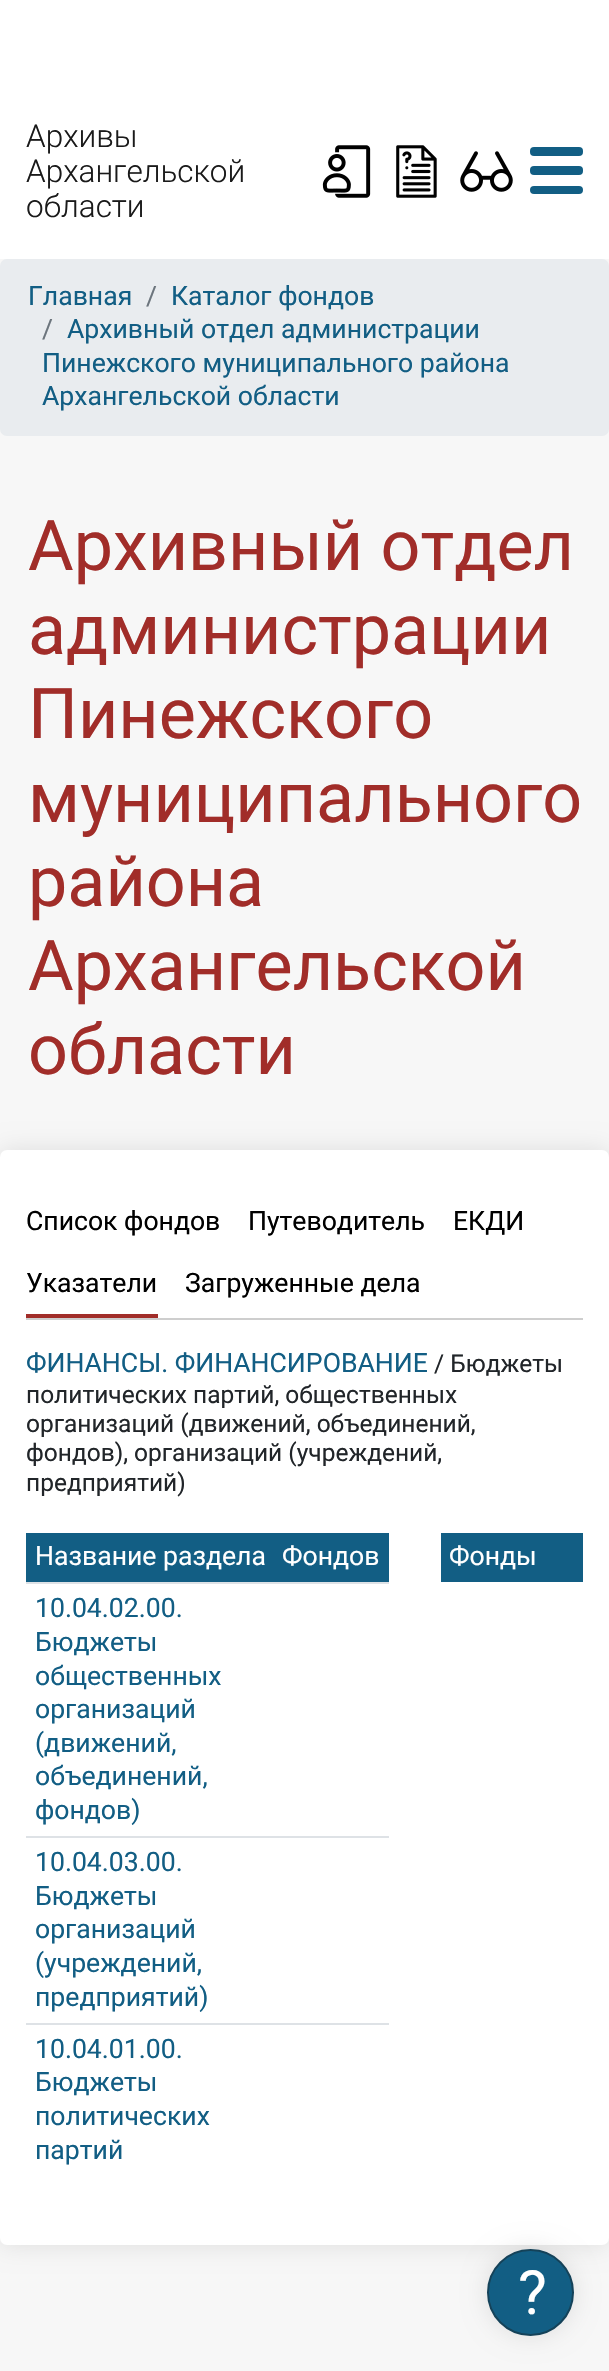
#include "include/core/SkBlurTypes.h"
#include "include/core/SkCanvas.h"
#include "include/core/SkData.h"
#include "include/core/SkFont.h"
#include "include/core/SkFontMgr.h"
#include "include/core/SkImage.h"
#include "include/core/SkMaskFilter.h"
#include "include/core/SkPaint.h"
#include "include/core/SkPathBuilder.h"
#include "include/core/SkTextBlob.h"
#include "include/effects/SkDashPathEffect.h"
#include "include/effects/SkGradientShader.h"
#include "include/utils/SkParsePath.h"

extern sk_sp<SkFontMgr> fontMgr;

void draw(SkCanvas* canvas) {
  SkPaint p;
  p.setAntiAlias(true);
  canvas->clear(SkColorSetRGB(247, 247, 247));
  p.setColor(SK_ColorWHITE);
  canvas->drawRect(SkRect::MakeLTRB(0, 0, 609, 259), p);
  canvas->drawImageRect(SkImages::DeferredFromEncodedData(SkData::MakeFromFileName("images/1.png")), SkRect::MakeLTRB(322, 145, 371, 198), SkSamplingOptions());
  canvas->drawImageRect(SkImages::DeferredFromEncodedData(SkData::MakeFromFileName("images/2.png")), SkRect::MakeLTRB(396, 145, 437, 198), SkSamplingOptions());
  canvas->drawImageRect(SkImages::DeferredFromEncodedData(SkData::MakeFromFileName("images/3.png")), SkRect::MakeLTRB(460, 151, 513, 192), SkSamplingOptions());
  p.setColor(SkColorSetRGB(18, 94, 132));
  canvas->drawRoundRect(SkRect::MakeLTRB(530, 166, 583, 175), 4, 4, p);
  canvas->drawRoundRect(SkRect::MakeLTRB(530, 147, 583, 156), 4, 4, p);
  canvas->drawRoundRect(SkRect::MakeLTRB(530, 186, 583, 194), 4, 4, p);
  p.setColor(SkColorSetRGB(233, 236, 239));
  canvas->drawRoundRect(SkRect::MakeLTRB(0, 259, 609, 436), 7, 7, p);
  p.setColor(SkColorSetARGB(26, 0, 0, 0));
  p.setMaskFilter(SkMaskFilter::MakeBlur(kNormal_SkBlurStyle, 12));
  canvas->drawRoundRect(SkRect::MakeLTRB(0, 1150, 609, 2245), 7, 7, p);
  p.setMaskFilter(nullptr);
  p.setColor(SK_ColorWHITE);
  canvas->drawRoundRect(SkRect::MakeLTRB(0, 1150, 609, 2245), 7, 7, p);
  p.setColor(SkColorSetRGB(206, 206, 206));
  canvas->drawRect(SkRect::MakeLTRB(26, 1318, 583, 1320), p);
  p.setColor(SkColorSetRGB(161, 45, 41));
  canvas->drawRect(SkRect::MakeLTRB(26, 1314, 158, 1318), p);
  p.setColor(SkColorSetRGB(18, 94, 132));
  canvas->drawRect(SkRect::MakeLTRB(26, 1533, 389, 1582), p);
  p.setColor(SkColorSetRGB(222, 226, 230));
  canvas->drawRect(SkRect::MakeLTRB(26, 1582, 389, 1584), p);
  canvas->drawRect(SkRect::MakeLTRB(26, 1836, 389, 1838), p);
  canvas->drawRect(SkRect::MakeLTRB(26, 2023, 389, 2025), p);
  p.setColor(SkColorSetRGB(18, 94, 132));
  canvas->drawRect(SkRect::MakeLTRB(441, 1533, 583, 1582), p);
  p.setColor(SkColorSetARGB(26, 0, 0, 0));
  p.setMaskFilter(SkMaskFilter::MakeBlur(kNormal_SkBlurStyle, 12));
  canvas->drawRoundRect(SkRect::MakeLTRB(487, 2249, 574, 2336), 43.5f, 43.5f, p);
  p.setMaskFilter(nullptr);
  p.setColor(SkColorSetRGB(18, 94, 132));
  canvas->drawCircle(530.5f, 2292.5f, 42.5f, p);
  p.setStyle(SkPaint::kStroke_Style);
  p.setStrokeWidth(2);
  p.setColor(SkColorSetRGB(20, 66, 89));
  canvas->drawCircle(530.5f, 2292.5f, 42.5f, p);
  SkFont font1(fontMgr->matchFamilyStyle("Roboto", SkFontStyle(300, SkFontStyle::kNormal_Width, SkFontStyle::kUpright_Slant)), 31.5f);
  font1.setSubpixel(true);
  p.setStyle(SkPaint::kFill_Style);
  p.setColor(SkColorSetRGB(26, 26, 26));
  canvas->drawString("Архивы", 26, 147, font1, p);
  canvas->drawString("Архангельской", 26, 182, font1, p);
  canvas->drawString("области", 26, 217, font1, p);
  SkFont font2(fontMgr->matchFamilyStyle("Roboto", SkFontStyle::Normal()), 26.6f);
  font2.setSubpixel(true);
  p.setColor(SkColorSetRGB(18, 94, 132));
  canvas->drawString("Главная", 28, 305, font2, p);
  p.setColor(SkColorSetRGB(108, 117, 125));
  canvas->drawString("/", 146, 305, font2, p);
  p.setColor(SkColorSetRGB(18, 94, 132));
  canvas->drawString("Каталог фондов", 171, 305, font2, p);
  p.setColor(SkColorSetRGB(108, 117, 125));
  canvas->drawString("/", 42, 338, font2, p);
  p.setColor(SkColorSetRGB(18, 94, 132));
  canvas->drawString("Архивный отдел администрации", 67, 338, font2, p);
  canvas->drawString("Пинежского муниципального района", 42, 372, font2, p);
  canvas->drawString("Архангельской области", 42, 405, font2, p);
  SkFont font3(fontMgr->matchFamilyStyle("Roboto", SkFontStyle::Normal()), 70);
  font3.setSubpixel(true);
  p.setColor(SkColorSetRGB(161, 45, 41));
  canvas->drawString("Архивный отдел", 28, 570, font3, p);
  canvas->drawString("администрации", 28, 654, font3, p);
  canvas->drawString("Пинежского", 28, 738, font3, p);
  canvas->drawString("муниципального", 28, 822, font3, p);
  canvas->drawString("района", 28, 906, font3, p);
  canvas->drawString("Архангельской", 28, 990, font3, p);
  canvas->drawString("области", 28, 1074, font3, p);
  p.setColor(SK_ColorBLACK);
  canvas->drawString("Список фондов", 26, 1230, font2, p);
  canvas->drawString("Путеводитель", 248, 1230, font2, p);
  canvas->drawString("ЕКДИ", 453, 1230, font2, p);
  canvas->drawString("Указатели", 26, 1292, font2, p);
  canvas->drawString("Загруженные дела", 185, 1292, font2, p);
  p.setColor(SkColorSetRGB(18, 94, 132));
  canvas->drawString("ФИНАНСЫ. ФИНАНСИРОВАНИЕ", 26, 1372, font2, p);
  SkFont font4(fontMgr->matchFamilyStyle("Roboto", SkFontStyle::Normal()), 24.5f);
  font4.setSubpixel(true);
  p.setColor(SkColorSetRGB(33, 37, 41));
  canvas->drawString("/ Бюджеты", 434, 1372, font4, p);
  canvas->drawString("политических партий, общественных", 26, 1403, font4, p);
  canvas->drawString("организаций (движений, объединений,", 26, 1432, font4, p);
  canvas->drawString("фондов), организаций (учреждений,", 26, 1461, font4, p);
  canvas->drawString("предприятий)", 26, 1491, font4, p);
  p.setColor(SK_ColorWHITE);
  canvas->drawString("Название раздела", 35, 1565, font2, p);
  canvas->drawString("Фондов", 282, 1565, font2, p);
  p.setColor(SkColorSetRGB(18, 94, 132));
  canvas->drawString("10.04.02.00.", 35, 1617, font2, p);
  canvas->drawString("Бюджеты", 35, 1651, font2, p);
  canvas->drawString("общественных", 35, 1685, font2, p);
  canvas->drawString("организаций", 35, 1718, font2, p);
  canvas->drawString("(движений,", 35, 1752, font2, p);
  canvas->drawString("объединений,", 35, 1785, font2, p);
  canvas->drawString("фондов)", 35, 1819, font2, p);
  canvas->drawString("10.04.03.00.", 35, 1871, font2, p);
  canvas->drawString("Бюджеты", 35, 1905, font2, p);
  canvas->drawString("организаций", 35, 1938, font2, p);
  canvas->drawString("(учреждений,", 35, 1972, font2, p);
  canvas->drawString("предприятий)", 35, 2006, font2, p);
  canvas->drawString("10.04.01.00.", 35, 2058, font2, p);
  canvas->drawString("Бюджеты", 35, 2091, font2, p);
  canvas->drawString("политических", 35, 2125, font2, p);
  canvas->drawString("партий", 35, 2159, font2, p);
  p.setColor(SK_ColorWHITE);
  canvas->drawString("Фонды", 449, 1565, font2, p);
  SkFont font5(fontMgr->matchFamilyStyle("Roboto", SkFontStyle::Normal()), 61);
  font5.setSubpixel(true);
  canvas->drawString("?", 518, 2314, font5, p);
}
